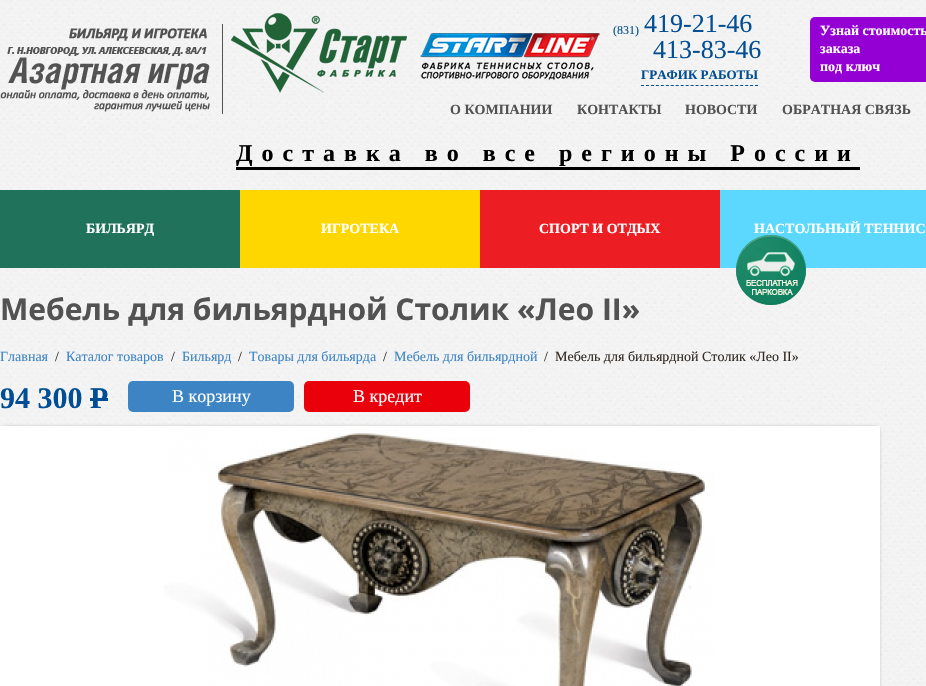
#include "include/core/SkBlurTypes.h"
#include "include/core/SkCanvas.h"
#include "include/core/SkData.h"
#include "include/core/SkFont.h"
#include "include/core/SkFontMgr.h"
#include "include/core/SkImage.h"
#include "include/core/SkMaskFilter.h"
#include "include/core/SkPaint.h"
#include "include/core/SkPathBuilder.h"
#include "include/core/SkTextBlob.h"
#include "include/effects/SkDashPathEffect.h"
#include "include/effects/SkGradientShader.h"
#include "include/utils/SkParsePath.h"

extern sk_sp<SkFontMgr> fontMgr;

void draw(SkCanvas* canvas) {
  SkPaint p;
  p.setAntiAlias(true);
  auto spacedText = [&](const char* s, float x, float y, const SkFont& font, const SkPaint& ink, float letter, float word) {
    std::vector<SkGlyphID> glyphs(font.countText(s, strlen(s), SkTextEncoding::kUTF8));
    std::vector<float> xs(glyphs.size());
    font.textToGlyphs(s, strlen(s), SkTextEncoding::kUTF8, glyphs);
    font.getXPos(glyphs, xs, x);
    float extra = 0;
    for (size_t i = 0; i < glyphs.size(); i++) {
      xs[i] += extra;
      extra += letter + word * (glyphs[i] == font.unicharToGlyph(' '));
    }
    canvas->drawTextBlob(SkTextBlob::MakeFromPosHGlyphs(glyphs, xs, y, font), 0, 0, ink);
  };
  canvas->clear(SK_ColorWHITE);
  canvas->drawImageRect(SkImages::DeferredFromEncodedData(SkData::MakeFromFileName("images/1.png")), SkRect::MakeLTRB(0, 0, 926, 686), SkSamplingOptions());
  canvas->drawImageRect(SkImages::DeferredFromEncodedData(SkData::MakeFromFileName("images/2.png")), SkRect::MakeLTRB(0, 28, 210, 112), SkSamplingOptions());
  p.setColor(SkColorSetRGB(82, 82, 82));
  canvas->drawRect(SkRect::MakeLTRB(222, 24, 223, 114), p);
  canvas->drawImageRect(SkImages::DeferredFromEncodedData(SkData::MakeFromFileName("images/3.png")), SkRect::MakeLTRB(231, 13, 407, 93), SkSamplingOptions());
  canvas->drawImageRect(SkImages::DeferredFromEncodedData(SkData::MakeFromFileName("images/4.png")), SkRect::MakeLTRB(420, 33, 600, 80), SkSamplingOptions());
  p.setColor(SkColorSetRGB(148, 0, 211));
  canvas->drawRoundRect(SkRect::MakeLTRB(810, 17, 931, 82), 5, 5, p);
  p.setStyle(SkPaint::kStroke_Style);
  p.setStrokeWidth(1);
  p.setColor(SkColorSetRGB(2, 78, 148));
  p.setPathEffect(SkDashPathEffect::Make({{3, 1.96f}}, 0));
  canvas->drawPath(SkPathBuilder().moveTo(641, 85.5f).lineTo(758, 85.5f).detach(), p);
  p.setPathEffect(nullptr);
  p.setStyle(SkPaint::kFill_Style);
  p.setColor(SK_ColorBLACK);
  canvas->drawRect(SkRect::MakeLTRB(236, 167, 860, 170), p);
  p.setColor(SkColorSetRGB(32, 114, 90));
  canvas->drawRect(SkRect::MakeLTRB(0, 190, 240, 268), p);
  p.setColor(SkColorSetRGB(255, 215, 0));
  canvas->drawRect(SkRect::MakeLTRB(240, 190, 480, 268), p);
  p.setColor(SkColorSetRGB(236, 30, 36));
  canvas->drawRect(SkRect::MakeLTRB(480, 190, 720, 268), p);
  p.setColor(SkColorSetRGB(92, 216, 254));
  canvas->drawRect(SkRect::MakeLTRB(720, 190, 926, 268), p);
  p.setColor(SkColorSetRGB(27, 135, 102));
  canvas->drawCircle(771, 270, 35, p);
  canvas->drawImageRect(SkImages::DeferredFromEncodedData(SkData::MakeFromFileName("images/5.png")), SkRect::MakeLTRB(736, 235, 806, 305), SkSamplingOptions());
  p.setColor(SkColorSetRGB(2, 78, 148));
  canvas->drawRect(SkRect::MakeLTRB(90, 398, 108, 401), p);
  p.setColor(SkColorSetRGB(61, 132, 197));
  canvas->drawRoundRect(SkRect::MakeLTRB(128, 381, 294, 412), 5, 5, p);
  p.setColor(SkColorSetRGB(234, 0, 10));
  canvas->drawRoundRect(SkRect::MakeLTRB(304, 381, 470, 412), 5, 5, p);
  p.setColor(SkColorSetARGB(51, 0, 0, 0));
  p.setMaskFilter(SkMaskFilter::MakeBlur(kNormal_SkBlurStyle, 1.5f));
  canvas->drawRoundRect(SkRect::MakeLTRB(0, 426, 880, 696), 5, 5, p);
  p.setMaskFilter(nullptr);
  canvas->drawImageRect(SkImages::DeferredFromEncodedData(SkData::MakeFromFileName("images/6.png")), SkRect::MakeLTRB(0, 426, 880, 686), SkSamplingOptions());
  SkFont font1(fontMgr->matchFamilyStyle("Liberation Serif", SkFontStyle::Normal()), 12);
  font1.setSubpixel(true);
  p.setColor(SkColorSetRGB(2, 78, 148));
  canvas->drawString("(831)", 613, 34, font1, p);
  SkFont font2(fontMgr->matchFamilyStyle("Liberation Serif", SkFontStyle::Normal()), 26);
  font2.setSubpixel(true);
  canvas->drawString("419-21-46", 644, 32, font2, p);
  SkFont font3(fontMgr->matchFamilyStyle("Liberation Serif", SkFontStyle::Bold()), 14);
  font3.setSubpixel(true);
  p.setColor(SK_ColorWHITE);
  canvas->drawString("Узнай стоимость", 820, 35, font3, p);
  canvas->drawString("заказа", 820, 53, font3, p);
  canvas->drawString("под ключ", 820, 71, font3, p);
  p.setColor(SkColorSetRGB(2, 78, 148));
  canvas->drawString("413-83-46", 653, 58, font2, p);
  SkFont font4(fontMgr->matchFamilyStyle("Liberation Serif", SkFontStyle::Bold()), 13);
  font4.setSubpixel(true);
  canvas->drawString("ГРАФИК РАБОТЫ", 641, 79, font4, p);
  p.setColor(SkColorSetRGB(82, 82, 82));
  canvas->drawString("О КОМПАНИИ", 450, 114, font3, p);
  canvas->drawString("КОНТАКТЫ", 577, 114, font3, p);
  canvas->drawString("НОВОСТИ", 685, 114, font3, p);
  canvas->drawString("ОБРАТНАЯ СВЯЗЬ", 782, 114, font3, p);
  SkFont font5(fontMgr->matchFamilyStyle("Liberation Serif", SkFontStyle::Bold()), 24);
  font5.setSubpixel(true);
  p.setColor(SK_ColorBLACK);
  spacedText("Доставка во все регионы России", 236, 161, font5, p, 9, 0);
  p.setColor(SK_ColorWHITE);
  canvas->drawString("БИЛЬЯРД", 86, 233, font3, p);
  canvas->drawString("ИГРОТЕКА", 321, 233, font3, p);
  canvas->drawString("СПОРТ И ОТДЫХ", 539, 233, font3, p);
  canvas->drawString("НАСТОЛЬНЫЙ ТЕННИС", 754, 233, font3, p);
  SkFont font6(fontMgr->matchFamilyStyle("Open Sans", SkFontStyle::Bold()), 30);
  font6.setSubpixel(true);
  p.setColor(SkColorSetRGB(82, 82, 82));
  canvas->drawString("Мебель для бильярдной Столик «Лео II»", 0, 320, font6, p);
  SkFont font7(fontMgr->matchFamilyStyle("Liberation Serif", SkFontStyle::Normal()), 14);
  font7.setSubpixel(true);
  p.setColor(SkColorSetRGB(61, 132, 197));
  canvas->drawString("Главная", 0, 361, font7, p);
  p.setColor(SkColorSetRGB(48, 40, 34));
  canvas->drawString("/", 55, 361, font7, p);
  p.setColor(SkColorSetRGB(61, 132, 197));
  canvas->drawString("Каталог товаров", 66, 361, font7, p);
  p.setColor(SkColorSetRGB(48, 40, 34));
  canvas->drawString("/", 171, 361, font7, p);
  p.setColor(SkColorSetRGB(61, 132, 197));
  canvas->drawString("Бильярд", 182, 361, font7, p);
  p.setColor(SkColorSetRGB(48, 40, 34));
  canvas->drawString("/", 238, 361, font7, p);
  p.setColor(SkColorSetRGB(61, 132, 197));
  canvas->drawString("Товары для бильярда", 249, 361, font7, p);
  p.setColor(SkColorSetRGB(48, 40, 34));
  canvas->drawString("/", 383, 361, font7, p);
  p.setColor(SkColorSetRGB(61, 132, 197));
  canvas->drawString("Мебель для бильярдной", 394, 361, font7, p);
  p.setColor(SkColorSetRGB(48, 40, 34));
  canvas->drawString("/", 544, 361, font7, p);
  canvas->drawString("Мебель для бильярдной Столик «Лео II»", 555, 361, font7, p);
  SkFont font8(fontMgr->matchFamilyStyle("Liberation Serif", SkFontStyle::Bold()), 30);
  font8.setSubpixel(true);
  p.setColor(SkColorSetRGB(2, 78, 148));
  canvas->drawString("94 300 Р", 0, 408, font8, p);
  SkFont font9(fontMgr->matchFamilyStyle("Liberation Serif", SkFontStyle::Normal()), 18);
  font9.setSubpixel(true);
  p.setColor(SK_ColorWHITE);
  canvas->drawString("В корзину", 172, 402, font9, p);
  canvas->drawString("В кредит", 353, 402, font9, p);
}
